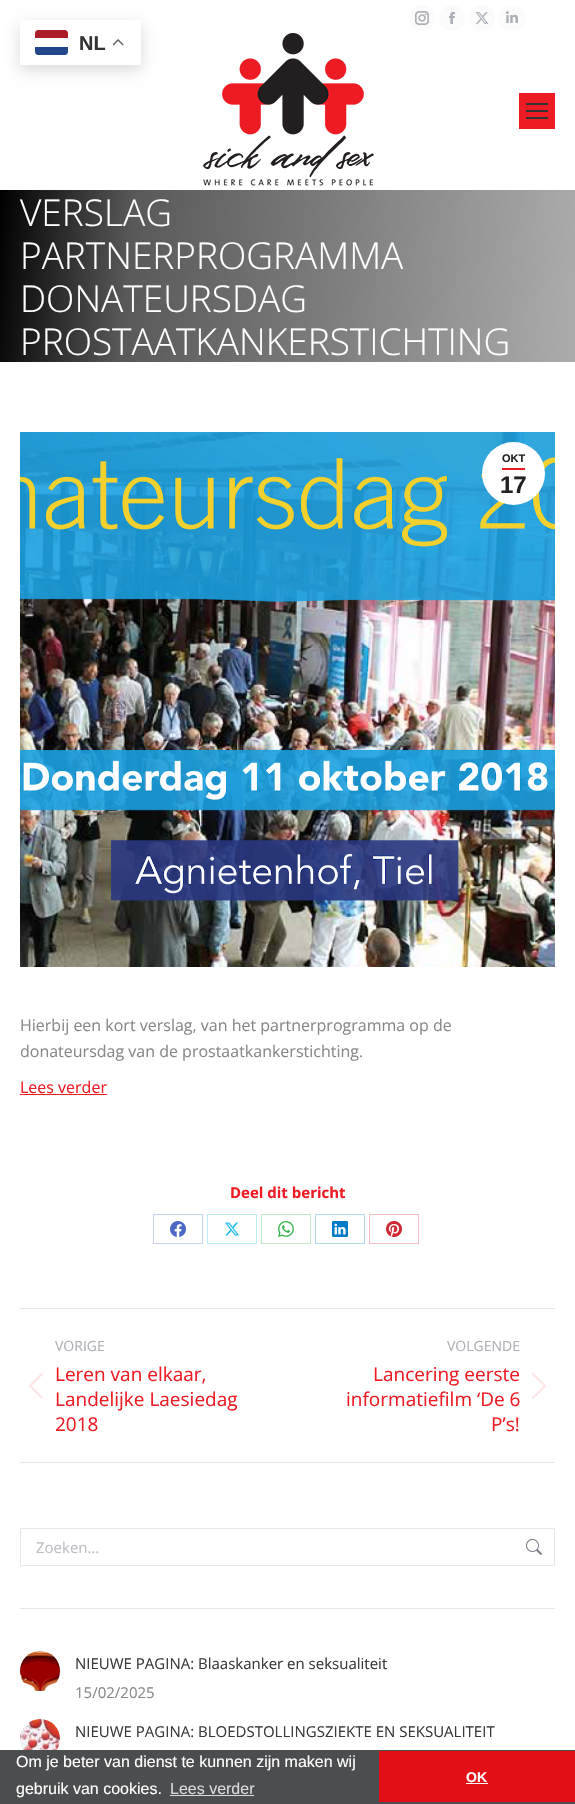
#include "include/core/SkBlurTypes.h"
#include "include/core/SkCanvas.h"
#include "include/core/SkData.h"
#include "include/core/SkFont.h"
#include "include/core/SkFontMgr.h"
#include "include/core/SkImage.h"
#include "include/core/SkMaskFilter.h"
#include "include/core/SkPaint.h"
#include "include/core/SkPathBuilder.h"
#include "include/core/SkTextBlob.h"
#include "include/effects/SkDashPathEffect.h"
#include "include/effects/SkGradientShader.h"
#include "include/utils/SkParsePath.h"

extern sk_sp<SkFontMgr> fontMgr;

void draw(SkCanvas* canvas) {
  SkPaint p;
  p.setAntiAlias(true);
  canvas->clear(SK_ColorWHITE);
  p.setColor(SkColorSetARGB(38, 0, 0, 0));
  p.setMaskFilter(SkMaskFilter::MakeBlur(kNormal_SkBlurStyle, 7.5f));
  canvas->drawRoundRect(SkRect::MakeLTRB(20, 25, 141, 70), 2, 2, p);
  p.setMaskFilter(nullptr);
  p.setColor(SK_ColorWHITE);
  canvas->drawRoundRect(SkRect::MakeLTRB(20, 20, 141, 65), 2, 2, p);
  p.setColor(SkColorSetRGB(33, 70, 139));
  canvas->drawPath(SkPathBuilder().moveTo(35, 47).lineTo(68, 47).lineTo(68, 52).cubicTo(68, 53.5f, 66.5f, 55, 65, 55).lineTo(38, 55).cubicTo(36.5f, 55, 35, 53.5f, 35, 52).close().detach(), p);
  p.setColor(SkColorSetRGB(174, 28, 40));
  canvas->drawPath(SkPathBuilder().moveTo(38, 30).lineTo(65, 30).cubicTo(66.5f, 30, 68, 31.5f, 68, 33).lineTo(68, 38).lineTo(35, 38).lineTo(35, 33).cubicTo(35, 31.5f, 36.5f, 30, 38, 30).close().detach(), p);
  canvas->drawImageRect(SkImages::DeferredFromEncodedData(SkData::MakeFromFileName("images/1.png")), SkRect::MakeLTRB(113, 39, 124, 46), SkSamplingOptions());
  p.setColor(SkColorSetRGB(251, 251, 252));
  canvas->drawCircle(422, 18, 13, p);
  canvas->drawImageRect(SkImages::DeferredFromEncodedData(SkData::MakeFromFileName("images/2.png")), SkRect::MakeLTRB(415, 11, 429, 25), SkSamplingOptions());
  canvas->drawCircle(452, 18, 13, p);
  canvas->drawImageRect(SkImages::DeferredFromEncodedData(SkData::MakeFromFileName("images/3.png")), SkRect::MakeLTRB(449, 12, 455, 24), SkSamplingOptions());
  canvas->drawCircle(482, 18, 13, p);
  canvas->drawImageRect(SkImages::DeferredFromEncodedData(SkData::MakeFromFileName("images/4.png")), SkRect::MakeLTRB(475, 12, 489, 24), SkSamplingOptions());
  canvas->drawCircle(512, 18, 13, p);
  canvas->drawImageRect(SkImages::DeferredFromEncodedData(SkData::MakeFromFileName("images/5.png")), SkRect::MakeLTRB(506, 11, 518, 23), SkSamplingOptions());
  canvas->drawImageRect(SkImages::DeferredFromEncodedData(SkData::MakeFromFileName("images/6.png")), SkRect::MakeLTRB(203, 33, 374, 186), SkSamplingOptions());
  p.setColor(SkColorSetRGB(237, 28, 36));
  canvas->drawRect(SkRect::MakeLTRB(519, 93, 555, 129), p);
  p.setColor(SkColorSetRGB(51, 51, 51));
  canvas->drawRect(SkRect::MakeLTRB(526, 103, 548, 105), p);
  canvas->drawRect(SkRect::MakeLTRB(526, 110, 548, 112), p);
  canvas->drawRect(SkRect::MakeLTRB(526, 117, 548, 119), p);
  {
    const SkColor colors[] = {SkColorSetRGB(204, 204, 204), SkColorSetRGB(191, 191, 191), SkColorSetRGB(89, 89, 89), SK_ColorBLACK, SkColorSetRGB(89, 89, 89), SkColorSetRGB(119, 119, 119), SkColorSetRGB(170, 170, 170)};
    const float stops[] = {0, 0, 0, 0, 0.23f, 0.52f, 0.98f};
    const SkPoint ends[] = {{-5.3f, 250}, {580, 302}};
    p.setShader(SkGradientShader::MakeLinear(ends, colors, stops, 7, SkTileMode::kClamp));
    p.setAlpha(255);
  }
  canvas->drawRect(SkRect::MakeLTRB(0, 190, 575, 362), p);
  canvas->drawImageRect(SkImages::DeferredFromEncodedData(SkData::MakeFromFileName("images/7.png")), SkRect::MakeLTRB(20, 432, 555, 967), SkSamplingOptions());
  p.setShader(nullptr);
  p.setColor(SK_ColorWHITE);
  canvas->drawCircle(513.5f, 473.5f, 31.5f, p);
  p.setColor(SkColorSetRGB(237, 28, 36));
  canvas->drawRect(SkRect::MakeLTRB(502, 468, 525, 470), p);
  canvas->drawRect(SkRect::MakeLTRB(20, 1094, 107, 1095), p);
  p.setStyle(SkPaint::kStroke_Style);
  p.setStrokeWidth(1);
  p.setColor(SkColorSetRGB(201, 210, 238));
  canvas->drawRect(SkRect::MakeLTRB(153.5f, 1214.5f, 202.5f, 1243.5f), p);
  canvas->drawImageRect(SkImages::DeferredFromEncodedData(SkData::MakeFromFileName("images/8.png")), SkRect::MakeLTRB(170, 1221, 186, 1237), SkSamplingOptions());
  p.setColor(SkColorSetRGB(191, 236, 249));
  canvas->drawRect(SkRect::MakeLTRB(207.5f, 1214.5f, 256.5f, 1243.5f), p);
  canvas->drawImageRect(SkImages::DeferredFromEncodedData(SkData::MakeFromFileName("images/9.png")), SkRect::MakeLTRB(225, 1222, 240, 1236), SkSamplingOptions());
  p.setColor(SkColorSetRGB(195, 233, 202));
  canvas->drawRect(SkRect::MakeLTRB(261.5f, 1214.5f, 310.5f, 1243.5f), p);
  canvas->drawImageRect(SkImages::DeferredFromEncodedData(SkData::MakeFromFileName("images/10.png")), SkRect::MakeLTRB(278, 1221, 294, 1237), SkSamplingOptions());
  p.setColor(SkColorSetRGB(179, 215, 238));
  canvas->drawRect(SkRect::MakeLTRB(315.5f, 1214.5f, 364.5f, 1243.5f), p);
  canvas->drawImageRect(SkImages::DeferredFromEncodedData(SkData::MakeFromFileName("images/11.png")), SkRect::MakeLTRB(332, 1221, 348, 1237), SkSamplingOptions());
  p.setColor(SkColorSetRGB(241, 191, 194));
  canvas->drawRect(SkRect::MakeLTRB(369.5f, 1214.5f, 418.5f, 1243.5f), p);
  canvas->drawImageRect(SkImages::DeferredFromEncodedData(SkData::MakeFromFileName("images/12.png")), SkRect::MakeLTRB(386, 1221, 402, 1237), SkSamplingOptions());
  p.setStyle(SkPaint::kFill_Style);
  p.setColor(SkColorSetRGB(230, 231, 233));
  canvas->drawRect(SkRect::MakeLTRB(20, 1308, 555, 1309), p);
  canvas->drawRect(SkRect::MakeLTRB(20, 1462, 555, 1463), p);
  canvas->drawImageRect(SkImages::DeferredFromEncodedData(SkData::MakeFromFileName("images/13.png")), SkRect::MakeLTRB(29, 1373, 43, 1399), SkSamplingOptions());
  canvas->drawImageRect(SkImages::DeferredFromEncodedData(SkData::MakeFromFileName("images/14.png")), SkRect::MakeLTRB(532, 1373, 546, 1399), SkSamplingOptions());
  p.setStyle(SkPaint::kStroke_Style);
  canvas->drawRoundRect(SkRect::MakeLTRB(20.5f, 1528.5f, 554.5f, 1565.5f), 0.5f, 0.5f, p);
  canvas->drawImageRect(SkImages::DeferredFromEncodedData(SkData::MakeFromFileName("images/15.png")), SkRect::MakeLTRB(526, 1539, 542, 1555), SkSamplingOptions());
  p.setStyle(SkPaint::kFill_Style);
  canvas->drawRect(SkRect::MakeLTRB(20, 1608, 555, 1609), p);
  canvas->drawImageRect(SkImages::DeferredFromEncodedData(SkData::MakeFromFileName("images/16.png")), SkRect::MakeLTRB(20, 1651, 60, 1691), SkSamplingOptions());
  canvas->drawImageRect(SkImages::DeferredFromEncodedData(SkData::MakeFromFileName("images/17.png")), SkRect::MakeLTRB(20, 1719, 60, 1750), SkSamplingOptions());
  p.setColor(SkColorSetRGB(76, 77, 79));
  canvas->drawRect(SkRect::MakeLTRB(0, 1750, 575, 1804), p);
  p.setColor(SkColorSetRGB(219, 219, 220));
  canvas->drawRect(SkRect::MakeLTRB(170, 1795, 254, 1796), p);
  p.setColor(SkColorSetRGB(226, 15, 23));
  canvas->drawRect(SkRect::MakeLTRB(379, 1751, 575, 1802), p);
  p.setColor(SK_ColorWHITE);
  canvas->drawRect(SkRect::MakeLTRB(466, 1783, 488, 1784), p);
  SkFont font1(fontMgr->matchFamilyStyle("Liberation Sans", SkFontStyle::Bold()), 20);
  font1.setSubpixel(true);
  p.setColor(SkColorSetRGB(51, 51, 51));
  canvas->drawString("NL", 79, 50, font1, p);
  SkFont font2(fontMgr->matchFamilyStyle("Open Sans", SkFontStyle(300, SkFontStyle::kNormal_Width, SkFontStyle::kUpright_Slant)), 37);
  font2.setSubpixel(true);
  p.setColor(SK_ColorWHITE);
  canvas->drawString("VERSLAG", 20, 226, font2, p);
  canvas->drawString("PARTNERPROGRAMMA", 20, 269, font2, p);
  canvas->drawString("DONATEURSDAG", 20, 312, font2, p);
  canvas->drawString("PROSTAATKANKERSTICHTING", 20, 355, font2, p);
  SkFont font3(fontMgr->matchFamilyStyle("Liberation Sans", SkFontStyle::Bold()), 11);
  font3.setSubpixel(true);
  p.setColor(SkColorSetRGB(34, 34, 34));
  canvas->drawString("OKT", 502, 462, font3, p);
  SkFont font4(fontMgr->matchFamilyStyle("Liberation Sans", SkFontStyle::Bold()), 24);
  font4.setSubpixel(true);
  canvas->drawString("17", 500, 493, font4, p);
  SkFont font5(fontMgr->matchFamilyStyle("Open Sans", SkFontStyle::Normal()), 16);
  font5.setSubpixel(true);
  p.setColor(SkColorSetRGB(136, 136, 136));
  canvas->drawString("Hierbij een kort verslag, van het partnerprogramma op de", 20, 1031, font5, p);
  canvas->drawString("donateursdag van de prostaatkankerstichting.", 20, 1057, font5, p);
  p.setColor(SkColorSetRGB(237, 28, 36));
  canvas->drawString("Lees verder", 20, 1093, font5, p);
  SkFont font6(fontMgr->matchFamilyStyle("Open Sans", SkFontStyle::Bold()), 15);
  font6.setSubpixel(true);
  canvas->drawString("Deel dit bericht", 230, 1198, font6, p);
  SkFont font7(fontMgr->matchFamilyStyle("Open Sans", SkFontStyle::Normal()), 14);
  font7.setSubpixel(true);
  p.setColor(SkColorSetRGB(173, 176, 182));
  canvas->drawString("VORIGE", 55, 1351, font7, p);
  SkFont font8(fontMgr->matchFamilyStyle("Open Sans", SkFontStyle::Normal()), 19);
  font8.setSubpixel(true);
  p.setColor(SkColorSetRGB(237, 28, 36));
  canvas->drawString("Leren van elkaar,", 55, 1381, font8, p);
  canvas->drawString("Landelijke Laesiedag", 55, 1406, font8, p);
  canvas->drawString("2018", 55, 1431, font8, p);
  p.setColor(SkColorSetRGB(173, 176, 182));
  canvas->drawString("VOLGENDE", 447, 1351, font7, p);
  p.setColor(SkColorSetRGB(237, 28, 36));
  canvas->drawString("Lancering eerste", 373, 1381, font8, p);
  canvas->drawString("informatiefilm ‘De 6", 346, 1406, font8, p);
  canvas->drawString("P’s!", 491, 1431, font8, p);
  SkFont font9(fontMgr->matchFamilyStyle("Open Sans", SkFontStyle::Normal()), 15);
  font9.setSubpixel(true);
  p.setColor(SkColorSetRGB(188, 190, 194));
  canvas->drawString("Zoeken…", 36, 1553, font9, p);
  p.setColor(SkColorSetRGB(58, 58, 58));
  canvas->drawString("NIEUWE PAGINA: Blaaskanker en seksualiteit", 75, 1669, font9, p);
  p.setColor(SkColorSetRGB(136, 136, 136));
  canvas->drawString("15/02/2025", 75, 1698, font9, p);
  p.setColor(SkColorSetRGB(58, 58, 58));
  canvas->drawString("NIEUWE PAGINA: BLOEDSTOLLINGSZIEKTE EN SEKSUALITEIT", 75, 1737, font9, p);
  SkFont font10(fontMgr->matchFamilyStyle("Liberation Sans", SkFontStyle::Normal()), 16);
  font10.setSubpixel(true);
  p.setColor(SK_ColorWHITE);
  canvas->drawString("Om je beter van dienst te kunnen zijn maken wij", 16, 1767, font10, p);
  canvas->drawString("gebruik van cookies.", 16, 1794, font10, p);
  p.setColor(SkColorSetRGB(219, 219, 220));
  canvas->drawString("Lees verder", 170, 1794, font10, p);
  SkFont font11(fontMgr->matchFamilyStyle("Liberation Sans", SkFontStyle::Bold()), 14);
  font11.setSubpixel(true);
  p.setColor(SK_ColorWHITE);
  canvas->drawString("OK", 466, 1782, font11, p);
}
